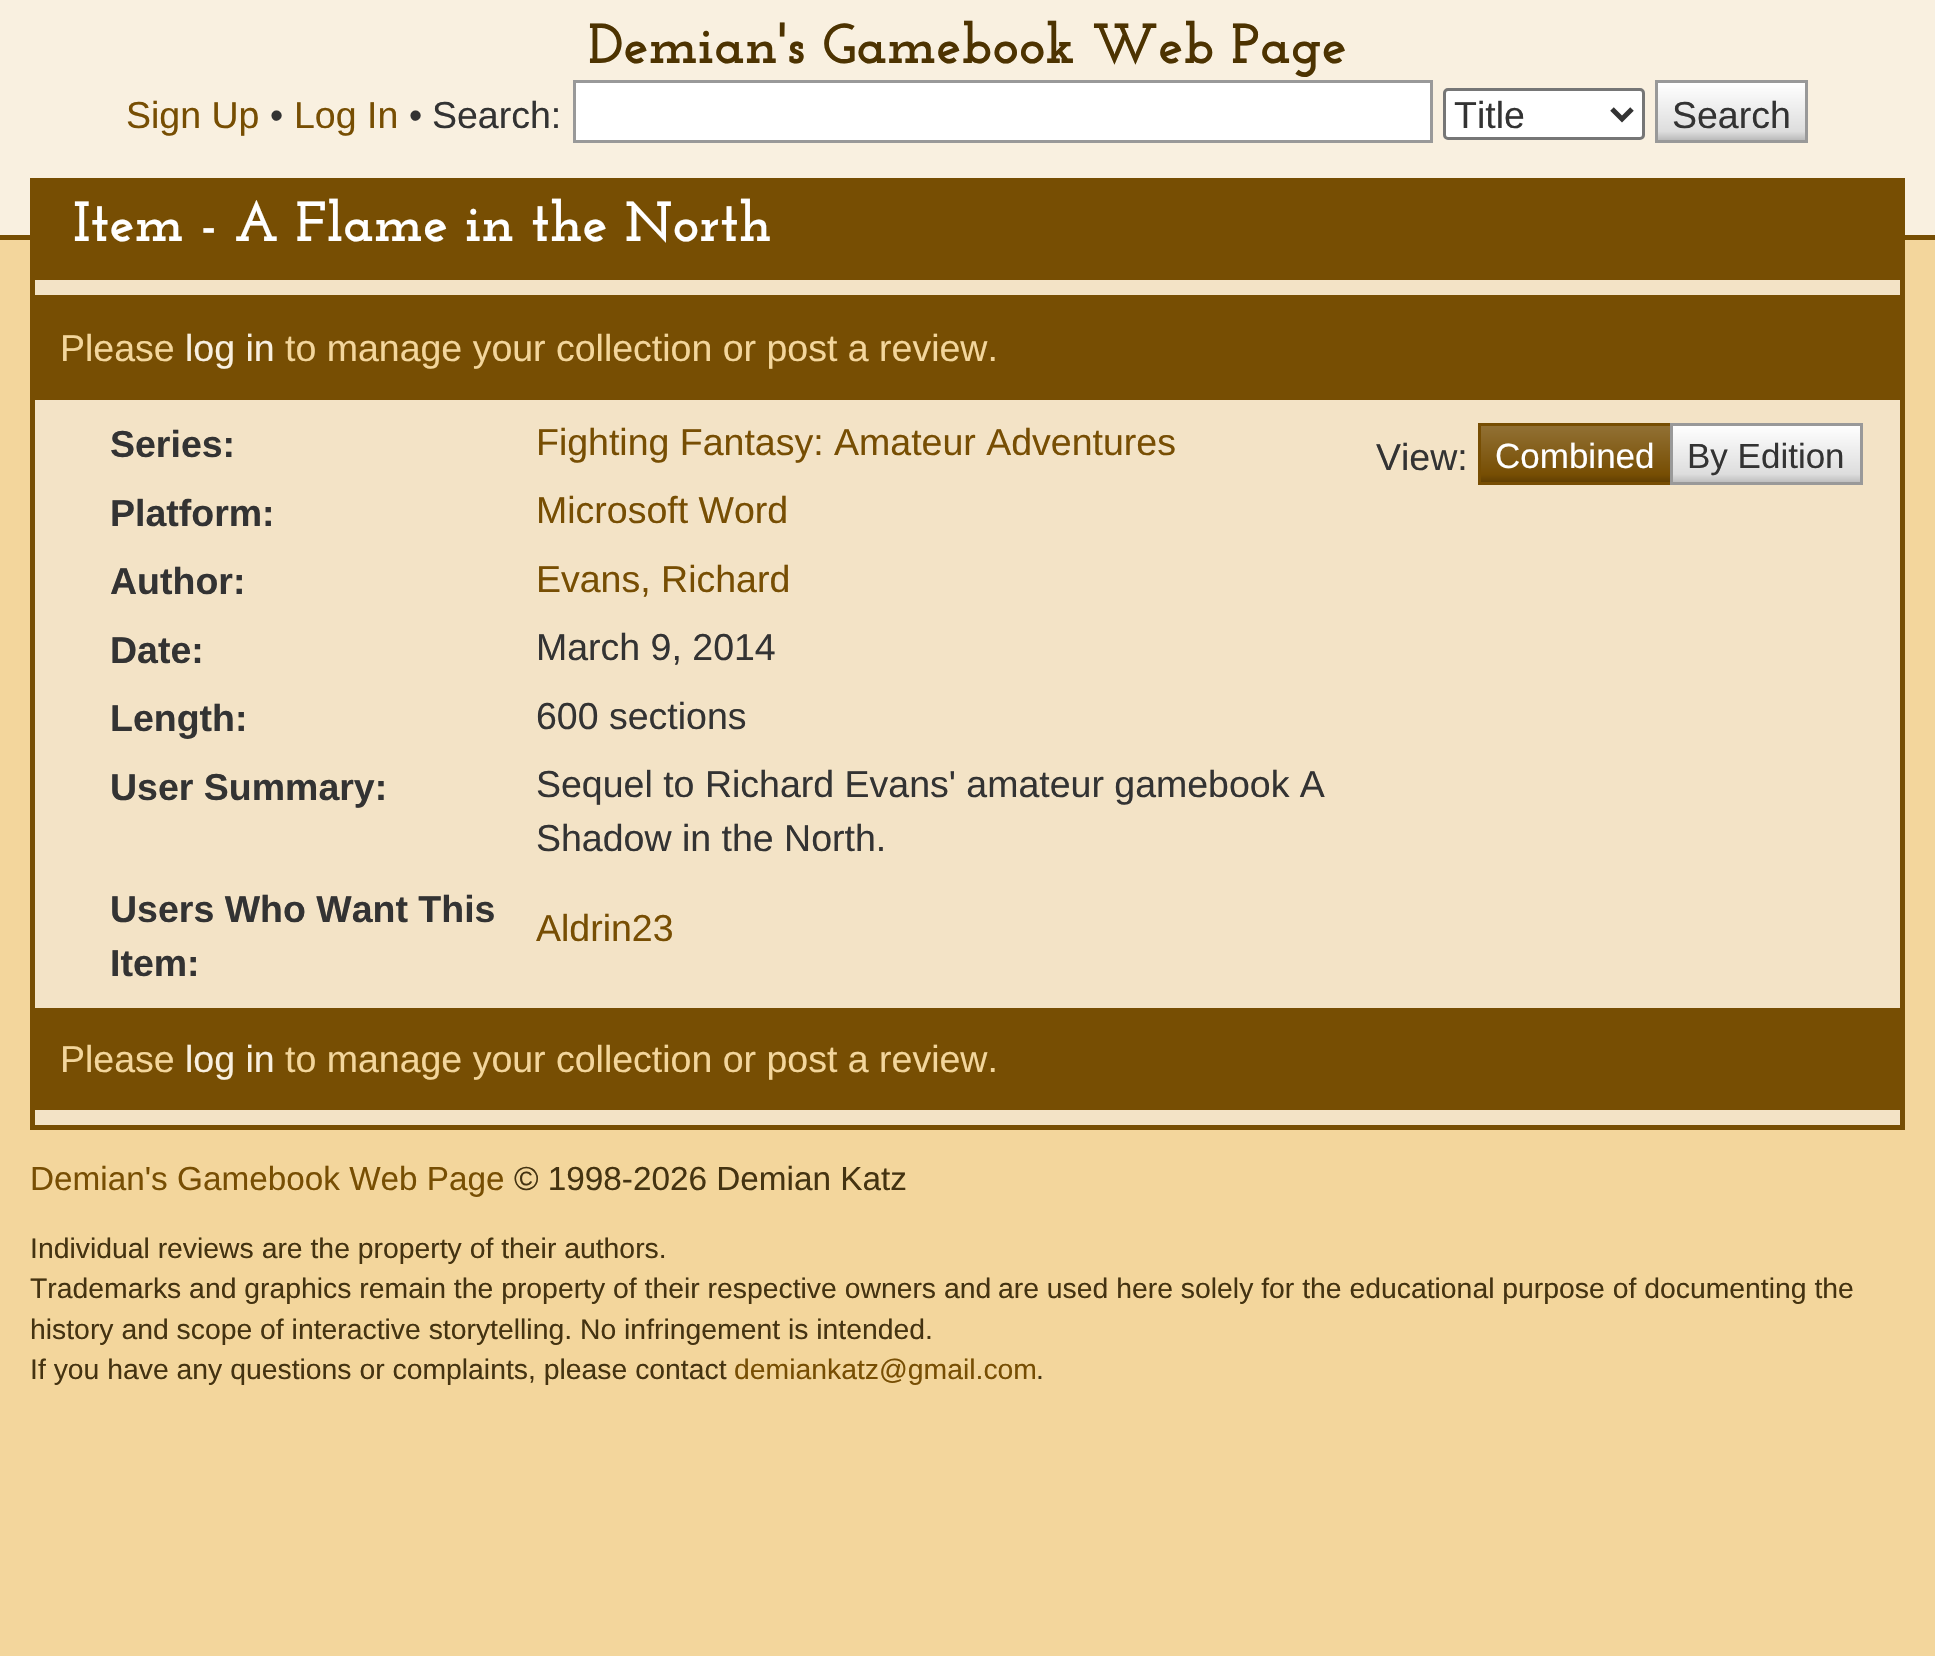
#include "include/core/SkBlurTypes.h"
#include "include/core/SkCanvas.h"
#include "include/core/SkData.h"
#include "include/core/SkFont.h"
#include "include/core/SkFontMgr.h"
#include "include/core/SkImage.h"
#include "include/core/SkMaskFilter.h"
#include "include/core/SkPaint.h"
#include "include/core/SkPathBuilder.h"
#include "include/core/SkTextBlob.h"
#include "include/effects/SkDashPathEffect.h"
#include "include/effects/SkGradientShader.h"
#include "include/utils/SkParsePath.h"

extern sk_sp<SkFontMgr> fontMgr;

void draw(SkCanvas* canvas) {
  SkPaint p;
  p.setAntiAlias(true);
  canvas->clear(SkColorSetRGB(243, 214, 156));
  p.setColor(SkColorSetRGB(249, 240, 224));
  canvas->drawRect(SkRect::MakeLTRB(0, 0, 1935, 235), p);
  p.setColor(SkColorSetRGB(119, 78, 3));
  canvas->drawRect(SkRect::MakeLTRB(0, 235, 1935, 240), p);
  p.setColor(SK_ColorWHITE);
  canvas->drawRect(SkRect::MakeLTRB(574.5f, 81.5f, 1431.5f, 141.5f), p);
  p.setStyle(SkPaint::kStroke_Style);
  p.setStrokeWidth(3);
  p.setColor(SkColorSetRGB(153, 153, 153));
  canvas->drawRect(SkRect::MakeLTRB(574.5f, 81.5f, 1431.5f, 141.5f), p);
  p.setStyle(SkPaint::kFill_Style);
  p.setColor(SK_ColorWHITE);
  canvas->drawRoundRect(SkRect::MakeLTRB(1444.5f, 89.5f, 1643.5f, 138.5f), 3.5f, 3.5f, p);
  p.setStyle(SkPaint::kStroke_Style);
  p.setColor(SkColorSetRGB(118, 118, 118));
  canvas->drawRoundRect(SkRect::MakeLTRB(1444.5f, 89.5f, 1643.5f, 138.5f), 3.5f, 3.5f, p);
  p.setStrokeWidth(5);
  p.setColor(SkColorSetRGB(51, 51, 51));
  canvas->drawPath(SkPathBuilder().moveTo(1612, 109).lineTo(1622, 119).lineTo(1632, 109).detach(), p);
  p.setStyle(SkPaint::kFill_Style);
  {
    const SkColor colors[] = {SK_ColorWHITE, SkColorSetRGB(221, 221, 221), SkColorSetRGB(187, 187, 187)};
    const float stops[] = {0, 0.85f, 1};
    const SkPoint ends[] = {{1731, 83}, {1731, 140}};
    p.setShader(SkGradientShader::MakeLinear(ends, colors, stops, 3, SkTileMode::kClamp));
    p.setAlpha(255);
  }
  canvas->drawRect(SkRect::MakeLTRB(1658, 83, 1805, 140), p);
  p.setStyle(SkPaint::kStroke_Style);
  p.setStrokeWidth(3);
  p.setShader(nullptr);
  p.setColor(SkColorSetRGB(153, 153, 153));
  canvas->drawRect(SkRect::MakeLTRB(1656.5f, 81.5f, 1806.5f, 141.5f), p);
  p.setStyle(SkPaint::kFill_Style);
  p.setColor(SkColorSetRGB(243, 227, 198));
  canvas->drawRect(SkRect::MakeLTRB(35, 280, 1900, 1125), p);
  p.setColor(SkColorSetRGB(119, 78, 3));
  canvas->drawRect(SkRect::MakeLTRB(30, 178, 1905, 280), p);
  canvas->drawRect(SkRect::MakeLTRB(1900, 280, 1905, 1130), p);
  canvas->drawRect(SkRect::MakeLTRB(30, 1125, 1905, 1130), p);
  canvas->drawRect(SkRect::MakeLTRB(30, 280, 35, 1130), p);
  canvas->drawRect(SkRect::MakeLTRB(35, 295, 1900, 400), p);
  {
    const SkColor colors[] = {SkColorSetRGB(146, 113, 53), SkColorSetRGB(119, 78, 3), SkColorSetRGB(95, 62, 2)};
    const float stops[] = {0, 0.85f, 1};
    const SkPoint ends[] = {{1575, 425}, {1575, 483}};
    p.setShader(SkGradientShader::MakeLinear(ends, colors, stops, 3, SkTileMode::kClamp));
    p.setAlpha(255);
  }
  canvas->drawRect(SkRect::MakeLTRB(1481, 426, 1670, 482), p);
  p.setStyle(SkPaint::kStroke_Style);
  p.setShader(nullptr);
  p.setColor(SkColorSetRGB(119, 78, 3));
  canvas->drawRect(SkRect::MakeLTRB(1479.5f, 424.5f, 1671.5f, 483.5f), p);
  p.setStyle(SkPaint::kFill_Style);
  {
    const SkColor colors[] = {SK_ColorWHITE, SkColorSetRGB(221, 221, 221), SkColorSetRGB(187, 187, 187)};
    const float stops[] = {0, 0.85f, 1};
    const SkPoint ends[] = {{1766, 425}, {1766, 483}};
    p.setShader(SkGradientShader::MakeLinear(ends, colors, stops, 3, SkTileMode::kClamp));
    p.setAlpha(255);
  }
  canvas->drawRect(SkRect::MakeLTRB(1673, 426, 1860, 482), p);
  p.setStyle(SkPaint::kStroke_Style);
  p.setShader(nullptr);
  p.setColor(SkColorSetRGB(153, 153, 153));
  canvas->drawRect(SkRect::MakeLTRB(1671.5f, 424.5f, 1861.5f, 483.5f), p);
  p.setStyle(SkPaint::kFill_Style);
  p.setColor(SkColorSetRGB(119, 78, 3));
  canvas->drawRect(SkRect::MakeLTRB(35, 1008, 1900, 1110), p);
  SkFont font1(fontMgr->matchFamilyStyle("Josefin Slab", SkFontStyle::Bold()), 56.25f);
  font1.setSubpixel(true);
  p.setColor(SkColorSetRGB(77, 51, 1));
  canvas->drawString("Demian's Gamebook Web Page", 588, 63, font1, p);
  SkFont font2(fontMgr->matchFamilyStyle("Liberation Sans", SkFontStyle::Normal()), 37.5f);
  font2.setSubpixel(true);
  p.setColor(SkColorSetRGB(119, 78, 3));
  canvas->drawString("Sign Up", 126, 128, font2, p);
  p.setColor(SkColorSetRGB(51, 51, 51));
  canvas->drawString("•", 270, 128, font2, p);
  p.setColor(SkColorSetRGB(119, 78, 3));
  canvas->drawString("Log In", 294, 128, font2, p);
  p.setColor(SkColorSetRGB(51, 51, 51));
  canvas->drawString("•", 409, 128, font2, p);
  canvas->drawString("Search:", 432, 128, font2, p);
  canvas->drawString("Title", 1454, 128, font2, p);
  canvas->drawString("Search", 1672, 128, font2, p);
  p.setColor(SK_ColorWHITE);
  canvas->drawString("Item - A Flame in the North", 73, 241, font1, p);
  p.setColor(SkColorSetRGB(243, 214, 156));
  canvas->drawString("Please", 60, 361, font2, p);
  p.setColor(SkColorSetRGB(249, 240, 224));
  canvas->drawString("log in", 185, 361, font2, p);
  p.setColor(SkColorSetRGB(243, 214, 156));
  canvas->drawString("to manage your collection or post a review.", 285, 361, font2, p);
  SkFont font3(fontMgr->matchFamilyStyle("Liberation Sans", SkFontStyle::Bold()), 37.5f);
  font3.setSubpixel(true);
  p.setColor(SkColorSetRGB(51, 51, 51));
  canvas->drawString("Series:", 110, 457, font3, p);
  p.setColor(SkColorSetRGB(119, 78, 3));
  canvas->drawString("Fighting Fantasy: Amateur Adventures", 536, 455, font2, p);
  p.setColor(SkColorSetRGB(51, 51, 51));
  canvas->drawString("Platform:", 110, 526, font3, p);
  p.setColor(SkColorSetRGB(119, 78, 3));
  canvas->drawString("Microsoft Word", 536, 523, font2, p);
  p.setColor(SkColorSetRGB(51, 51, 51));
  canvas->drawString("Author:", 110, 594, font3, p);
  p.setColor(SkColorSetRGB(119, 78, 3));
  canvas->drawString("Evans, Richard", 536, 592, font2, p);
  p.setColor(SkColorSetRGB(51, 51, 51));
  canvas->drawString("Date:", 110, 663, font3, p);
  canvas->drawString("March 9, 2014", 536, 660, font2, p);
  canvas->drawString("Length:", 110, 731, font3, p);
  canvas->drawString("600 sections", 536, 729, font2, p);
  canvas->drawString("User Summary:", 110, 800, font3, p);
  canvas->drawString("Sequel to Richard Evans' amateur gamebook A", 536, 797, font2, p);
  canvas->drawString("Shadow in the North.", 536, 851, font2, p);
  canvas->drawString("Users Who Want This", 110, 922, font3, p);
  canvas->drawString("Item:", 110, 976, font3, p);
  p.setColor(SkColorSetRGB(119, 78, 3));
  canvas->drawString("Aldrin23", 536, 941, font2, p);
  p.setColor(SkColorSetRGB(51, 51, 51));
  canvas->drawString("View:", 1376, 470, font2, p);
  SkFont font4(fontMgr->matchFamilyStyle("Liberation Sans", SkFontStyle::Normal()), 35);
  font4.setSubpixel(true);
  p.setColor(SK_ColorWHITE);
  canvas->drawString("Combined", 1495, 468, font4, p);
  p.setColor(SkColorSetRGB(51, 51, 51));
  canvas->drawString("By Edition", 1687, 468, font4, p);
  p.setColor(SkColorSetRGB(243, 214, 156));
  canvas->drawString("Please", 60, 1072, font2, p);
  p.setColor(SkColorSetRGB(249, 240, 224));
  canvas->drawString("log in", 185, 1072, font2, p);
  p.setColor(SkColorSetRGB(243, 214, 156));
  canvas->drawString("to manage your collection or post a review.", 285, 1072, font2, p);
  SkFont font5(fontMgr->matchFamilyStyle("Liberation Sans", SkFontStyle::Normal()), 33.3f);
  font5.setSubpixel(true);
  p.setColor(SkColorSetRGB(119, 78, 3));
  canvas->drawString("Demian's Gamebook Web Page", 30, 1190, font5, p);
  p.setColor(SkColorSetRGB(68, 51, 17));
  canvas->drawString("© 1998-2026 Demian Katz", 514, 1190, font5, p);
  SkFont font6(fontMgr->matchFamilyStyle("Liberation Sans", SkFontStyle::Normal()), 28.35f);
  font6.setSubpixel(true);
  canvas->drawString("Individual reviews are the property of their authors.", 30, 1258, font6, p);
  canvas->drawString("Trademarks and graphics remain the property of their respective owners and", 30, 1298, font6, p);
  canvas->drawString("are used here solely for the educational purpose of documenting the", 998, 1298, font6, p);
  canvas->drawString("history and scope of interactive storytelling. No infringement is intended.", 30, 1339, font6, p);
  canvas->drawString("If you have any questions or complaints, please contact", 30, 1379, font6, p);
  p.setColor(SkColorSetRGB(119, 78, 3));
  canvas->drawString("demiankatz@gmail.com", 734, 1379, font6, p);
  p.setColor(SkColorSetRGB(68, 51, 17));
  canvas->drawString(".", 1036, 1379, font6, p);
}
